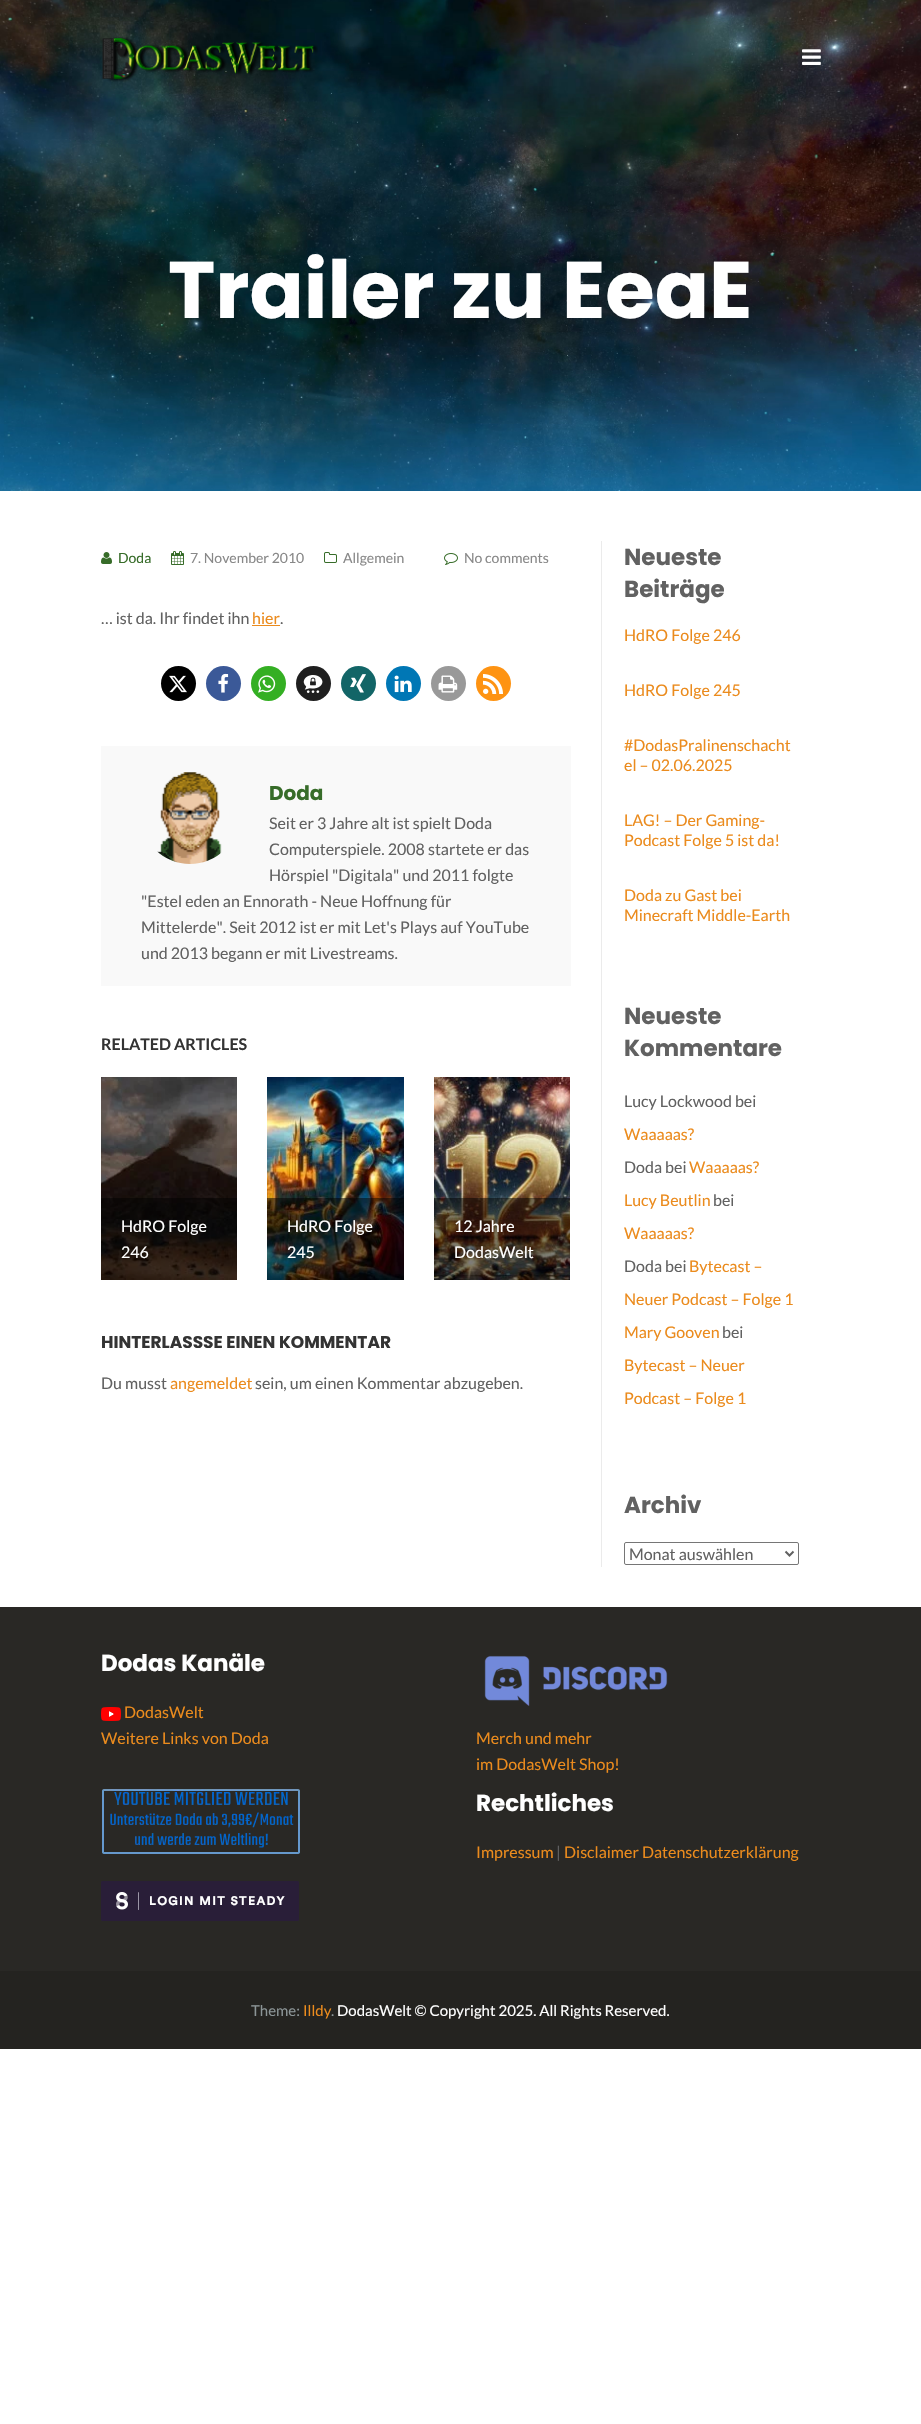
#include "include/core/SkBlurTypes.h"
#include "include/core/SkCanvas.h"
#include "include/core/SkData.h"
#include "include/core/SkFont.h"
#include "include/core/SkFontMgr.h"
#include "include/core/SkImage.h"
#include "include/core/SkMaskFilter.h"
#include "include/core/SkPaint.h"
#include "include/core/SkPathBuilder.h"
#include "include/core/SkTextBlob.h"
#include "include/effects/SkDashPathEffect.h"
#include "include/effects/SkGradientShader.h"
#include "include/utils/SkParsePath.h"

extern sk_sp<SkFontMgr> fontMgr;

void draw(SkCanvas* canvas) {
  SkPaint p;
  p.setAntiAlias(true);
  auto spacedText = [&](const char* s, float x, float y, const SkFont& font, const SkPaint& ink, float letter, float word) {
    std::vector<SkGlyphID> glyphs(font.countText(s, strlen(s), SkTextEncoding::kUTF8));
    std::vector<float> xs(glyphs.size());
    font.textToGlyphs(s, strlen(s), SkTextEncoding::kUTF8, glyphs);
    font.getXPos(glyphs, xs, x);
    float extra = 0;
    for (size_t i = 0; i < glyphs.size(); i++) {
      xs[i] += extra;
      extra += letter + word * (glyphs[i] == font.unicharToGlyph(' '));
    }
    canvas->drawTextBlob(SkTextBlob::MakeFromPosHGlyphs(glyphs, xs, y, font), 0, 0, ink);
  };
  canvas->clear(SK_ColorWHITE);
  canvas->drawImageRect(SkImages::DeferredFromEncodedData(SkData::MakeFromFileName("images/1.png")), SkRect::MakeLTRB(0, 0, 921, 491), SkSamplingOptions());
  canvas->drawImageRect(SkImages::DeferredFromEncodedData(SkData::MakeFromFileName("images/2.png")), SkRect::MakeLTRB(102, 37, 318, 82), SkSamplingOptions());
  canvas->drawImageRect(SkImages::DeferredFromEncodedData(SkData::MakeFromFileName("images/3.png")), SkRect::MakeLTRB(802, 49, 821, 65), SkSamplingOptions());
  canvas->drawImageRect(SkImages::DeferredFromEncodedData(SkData::MakeFromFileName("images/4.png")), SkRect::MakeLTRB(101, 552, 112, 564), SkSamplingOptions());
  canvas->drawImageRect(SkImages::DeferredFromEncodedData(SkData::MakeFromFileName("images/5.png")), SkRect::MakeLTRB(171, 551, 184, 565), SkSamplingOptions());
  canvas->drawImageRect(SkImages::DeferredFromEncodedData(SkData::MakeFromFileName("images/6.png")), SkRect::MakeLTRB(324, 552, 337, 563), SkSamplingOptions());
  canvas->drawImageRect(SkImages::DeferredFromEncodedData(SkData::MakeFromFileName("images/7.png")), SkRect::MakeLTRB(444, 553, 458, 565), SkSamplingOptions());
  p.setColor(SkColorSetRGB(235, 139, 29));
  canvas->drawRect(SkRect::MakeLTRB(252, 625, 280, 626), p);
  p.setColor(SK_ColorBLACK);
  canvas->drawCircle(178.5f, 683.5f, 17.5f, p);
  canvas->drawImageRect(SkImages::DeferredFromEncodedData(SkData::MakeFromFileName("images/8.png")), SkRect::MakeLTRB(169, 675, 187, 693), SkSamplingOptions());
  p.setColor(SkColorSetRGB(59, 89, 152));
  canvas->drawCircle(223.5f, 683.5f, 17.5f, p);
  canvas->drawImageRect(SkImages::DeferredFromEncodedData(SkData::MakeFromFileName("images/9.png")), SkRect::MakeLTRB(218, 673, 229, 693), SkSamplingOptions());
  p.setColor(SkColorSetRGB(52, 175, 35));
  canvas->drawCircle(268.5f, 683.5f, 17.5f, p);
  canvas->drawImageRect(SkImages::DeferredFromEncodedData(SkData::MakeFromFileName("images/10.png")), SkRect::MakeLTRB(258, 675, 276, 693), SkSamplingOptions());
  p.setColor(SkColorSetRGB(31, 31, 31));
  canvas->drawCircle(313.5f, 683.5f, 17.5f, p);
  canvas->drawImageRect(SkImages::DeferredFromEncodedData(SkData::MakeFromFileName("images/11.png")), SkRect::MakeLTRB(303, 675, 323, 693), SkSamplingOptions());
  p.setColor(SkColorSetRGB(18, 101, 103));
  canvas->drawCircle(358.5f, 683.5f, 17.5f, p);
  canvas->drawImageRect(SkImages::DeferredFromEncodedData(SkData::MakeFromFileName("images/12.png")), SkRect::MakeLTRB(350, 674, 366, 693), SkSamplingOptions());
  p.setColor(SkColorSetRGB(0, 119, 181));
  canvas->drawCircle(403.5f, 683.5f, 17.5f, p);
  canvas->drawImageRect(SkImages::DeferredFromEncodedData(SkData::MakeFromFileName("images/13.png")), SkRect::MakeLTRB(394, 675, 412, 693), SkSamplingOptions());
  p.setColor(SkColorSetRGB(153, 153, 153));
  canvas->drawCircle(448.5f, 683.5f, 17.5f, p);
  canvas->drawImageRect(SkImages::DeferredFromEncodedData(SkData::MakeFromFileName("images/14.png")), SkRect::MakeLTRB(438, 675, 458, 693), SkSamplingOptions());
  p.setColor(SkColorSetRGB(254, 147, 18));
  canvas->drawCircle(493.5f, 683.5f, 17.5f, p);
  canvas->drawImageRect(SkImages::DeferredFromEncodedData(SkData::MakeFromFileName("images/15.png")), SkRect::MakeLTRB(483, 674, 503, 694), SkSamplingOptions());
  p.setColor(SkColorSetRGB(249, 249, 249));
  canvas->drawRect(SkRect::MakeLTRB(101, 746, 571, 986), p);
  canvas->drawImageRect(SkImages::DeferredFromEncodedData(SkData::MakeFromFileName("images/16.png")), SkRect::MakeLTRB(157, 772, 222, 864), SkSamplingOptions());
  canvas->drawImageRect(SkImages::DeferredFromEncodedData(SkData::MakeFromFileName("images/17.png")), SkRect::MakeLTRB(101, 1077, 237, 1280), SkSamplingOptions());
  p.setColor(SkColorSetARGB(128, 0, 0, 0));
  canvas->drawRect(SkRect::MakeLTRB(101, 1198, 237, 1280), p);
  canvas->drawImageRect(SkImages::DeferredFromEncodedData(SkData::MakeFromFileName("images/18.png")), SkRect::MakeLTRB(267, 1077, 404, 1280), SkSamplingOptions());
  canvas->drawRect(SkRect::MakeLTRB(267, 1198, 404, 1280), p);
  canvas->drawImageRect(SkImages::DeferredFromEncodedData(SkData::MakeFromFileName("images/19.png")), SkRect::MakeLTRB(434, 1077, 570, 1280), SkSamplingOptions());
  canvas->drawRect(SkRect::MakeLTRB(434, 1198, 570, 1280), p);
  p.setColor(SkColorSetRGB(235, 235, 235));
  canvas->drawRect(SkRect::MakeLTRB(601, 541, 602, 1567), p);
  p.setStyle(SkPaint::kStroke_Style);
  p.setStrokeWidth(1);
  p.setColor(SkColorSetRGB(118, 118, 118));
  canvas->drawRoundRect(SkRect::MakeLTRB(624.5f, 1542.5f, 798.5f, 1564.5f), 1.5f, 1.5f, p);
  p.setStrokeWidth(2);
  p.setColor(SkColorSetRGB(97, 97, 97));
  canvas->drawPath(SkPathBuilder().moveTo(785.5f, 1551.5f).lineTo(789.5f, 1555.5f).lineTo(793.5f, 1551.5f).detach(), p);
  p.setStyle(SkPaint::kFill_Style);
  p.setColor(SkColorSetRGB(41, 40, 37));
  canvas->drawRect(SkRect::MakeLTRB(0, 1607, 921, 1971), p);
  canvas->drawImageRect(SkImages::DeferredFromEncodedData(SkData::MakeFromFileName("images/20.png")), SkRect::MakeLTRB(101, 1707, 121, 1721), SkSamplingOptions());
  canvas->drawImageRect(SkImages::DeferredFromEncodedData(SkData::MakeFromFileName("images/21.png")), SkRect::MakeLTRB(484, 1655, 668, 1706), SkSamplingOptions());
  canvas->drawImageRect(SkImages::DeferredFromEncodedData(SkData::MakeFromFileName("images/22.png")), SkRect::MakeLTRB(102, 1789, 300, 1854), SkSamplingOptions());
  p.setColor(SkColorSetRGB(41, 30, 56));
  canvas->drawRoundRect(SkRect::MakeLTRB(101.5f, 1881.5f, 298.5f, 1920.5f), 0.5f, 0.5f, p);
  p.setStyle(SkPaint::kStroke_Style);
  p.setStrokeWidth(1);
  canvas->drawRoundRect(SkRect::MakeLTRB(101.5f, 1881.5f, 298.5f, 1920.5f), 0.5f, 0.5f, p);
  canvas->drawImageRect(SkImages::DeferredFromEncodedData(SkData::MakeFromFileName("images/23.png")), SkRect::MakeLTRB(116, 1892, 128, 1910), SkSamplingOptions());
  p.setStyle(SkPaint::kFill_Style);
  p.setColor(SkColorSetRGB(154, 149, 166));
  canvas->drawRoundRect(SkRect::MakeLTRB(138, 1892, 139, 1910), 0.5f, 0.5f, p);
  p.setColor(SkColorSetRGB(36, 35, 32));
  canvas->drawRect(SkRect::MakeLTRB(0, 1971, 921, 2049), p);
  SkFont font1(fontMgr->matchFamilyStyle("Poppins", SkFontStyle::Bold()), 80);
  font1.setSubpixel(true);
  p.setColor(SK_ColorWHITE);
  canvas->drawString("Trailer zu EeaE", 168, 318, font1, p);
  SkFont font2(fontMgr->matchFamilyStyle("Lato", SkFontStyle::Normal()), 14);
  font2.setSubpixel(true);
  p.setColor(SkColorSetRGB(55, 108, 41));
  canvas->drawString("Doda", 118, 563, font2, p);
  p.setColor(SkColorSetRGB(136, 136, 136));
  canvas->drawString("7. November 2010", 190, 563, font2, p);
  canvas->drawString("Allgemein", 343, 563, font2, p);
  canvas->drawString("No comments", 464, 563, font2, p);
  SkFont font3(fontMgr->matchFamilyStyle("Lato", SkFontStyle::Normal()), 16);
  font3.setSubpixel(true);
  p.setColor(SkColorSetRGB(97, 97, 97));
  canvas->drawString("… ist da. Ihr findet ihn", 101, 624, font3, p);
  p.setColor(SkColorSetRGB(235, 139, 29));
  canvas->drawString("hier", 252, 624, font3, p);
  p.setColor(SkColorSetRGB(97, 97, 97));
  canvas->drawString(".", 280, 624, font3, p);
  SkFont font4(fontMgr->matchFamilyStyle("Poppins", SkFontStyle::Bold()), 20);
  font4.setSubpixel(true);
  p.setColor(SkColorSetRGB(55, 108, 41));
  canvas->drawString("Doda", 269, 800, font4, p);
  p.setColor(SkColorSetRGB(97, 97, 97));
  canvas->drawString("Seit er 3 Jahre alt ist spielt Doda", 269, 829, font3, p);
  canvas->drawString("Computerspiele. 2008 startete er das", 269, 855, font3, p);
  canvas->drawString("Hörspiel \"Digitala\" und 2011 folgte", 269, 881, font3, p);
  canvas->drawString("\"Estel eden an Ennorath - Neue Hoffnung für", 141, 907, font3, p);
  canvas->drawString("Mittelerde\". Seit 2012 ist er mit Let's Plays auf YouTube", 141, 933, font3, p);
  canvas->drawString("und 2013 begann er mit Livestreams.", 141, 959, font3, p);
  SkFont font5(fontMgr->matchFamilyStyle("Lato", SkFontStyle::Bold()), 16);
  font5.setSubpixel(true);
  p.setColor(SkColorSetRGB(51, 51, 51));
  canvas->drawString("RELATED ARTICLES", 101, 1050, font5, p);
  p.setColor(SK_ColorWHITE);
  canvas->drawString("HdRO Folge", 121, 1232, font3, p);
  canvas->drawString("246", 121, 1258, font3, p);
  canvas->drawString("HdRO Folge", 287, 1232, font3, p);
  canvas->drawString("245", 287, 1258, font3, p);
  canvas->drawString("12 Jahre", 454, 1232, font3, p);
  canvas->drawString("DodasWelt", 454, 1258, font3, p);
  SkFont font6(fontMgr->matchFamilyStyle("Poppins", SkFontStyle::Bold()), 17);
  font6.setSubpixel(true);
  p.setColor(SkColorSetRGB(51, 51, 51));
  canvas->drawString("HINTERLASSSE EINEN KOMMENTAR", 101, 1348, font6, p);
  p.setColor(SkColorSetRGB(97, 97, 97));
  canvas->drawString("Du musst", 101, 1389, font3, p);
  p.setColor(SkColorSetRGB(235, 139, 29));
  canvas->drawString("angemeldet", 170, 1389, font3, p);
  p.setColor(SkColorSetRGB(97, 97, 97));
  canvas->drawString("sein, um einen Kommentar abzugeben.", 255, 1389, font3, p);
  SkFont font7(fontMgr->matchFamilyStyle("Poppins", SkFontStyle::Bold()), 23);
  font7.setSubpixel(true);
  canvas->drawString("Neueste", 624, 565, font7, p);
  canvas->drawString("Beiträge", 624, 597, font7, p);
  p.setColor(SkColorSetRGB(235, 139, 29));
  canvas->drawString("HdRO Folge 246", 624, 641, font3, p);
  canvas->drawString("HdRO Folge 245", 624, 696, font3, p);
  canvas->drawString("#DodasPralinenschacht", 624, 751, font3, p);
  canvas->drawString("el – 02.06.2025", 624, 771, font3, p);
  canvas->drawString("LAG! – Der Gaming-", 624, 826, font3, p);
  canvas->drawString("Podcast Folge 5 ist da!", 624, 846, font3, p);
  canvas->drawString("Doda zu Gast bei", 624, 901, font3, p);
  canvas->drawString("Minecraft Middle-Earth", 624, 921, font3, p);
  p.setColor(SkColorSetRGB(97, 97, 97));
  canvas->drawString("Neueste", 624, 1024, font7, p);
  canvas->drawString("Kommentare", 624, 1056, font7, p);
  canvas->drawString("Lucy Lockwood bei", 624, 1107, font3, p);
  p.setColor(SkColorSetRGB(235, 139, 29));
  canvas->drawString("Waaaaas?", 624, 1140, font3, p);
  p.setColor(SkColorSetRGB(97, 97, 97));
  canvas->drawString("Doda bei", 624, 1173, font3, p);
  p.setColor(SkColorSetRGB(235, 139, 29));
  canvas->drawString("Waaaaas?", 689, 1173, font3, p);
  canvas->drawString("Lucy Beutlin", 624, 1206, font3, p);
  p.setColor(SkColorSetRGB(97, 97, 97));
  canvas->drawString("bei", 713, 1206, font3, p);
  p.setColor(SkColorSetRGB(235, 139, 29));
  canvas->drawString("Waaaaas?", 624, 1239, font3, p);
  p.setColor(SkColorSetRGB(97, 97, 97));
  canvas->drawString("Doda bei", 624, 1272, font3, p);
  p.setColor(SkColorSetRGB(235, 139, 29));
  canvas->drawString("Bytecast –", 689, 1272, font3, p);
  canvas->drawString("Neuer Podcast – Folge 1", 624, 1305, font3, p);
  canvas->drawString("Mary Gooven", 624, 1338, font3, p);
  p.setColor(SkColorSetRGB(97, 97, 97));
  canvas->drawString("bei", 722, 1338, font3, p);
  p.setColor(SkColorSetRGB(235, 139, 29));
  canvas->drawString("Bytecast – Neuer", 624, 1371, font3, p);
  canvas->drawString("Podcast – Folge 1", 624, 1404, font3, p);
  p.setColor(SkColorSetRGB(97, 97, 97));
  canvas->drawString("Archiv", 624, 1513, font7, p);
  canvas->drawString("Monat auswählen", 629, 1560, font3, p);
  p.setColor(SK_ColorWHITE);
  canvas->drawString("Dodas Kanäle", 101, 1671, font7, p);
  p.setColor(SkColorSetRGB(235, 139, 29));
  canvas->drawString("DodasWelt", 124, 1718, font3, p);
  canvas->drawString("Weitere Links von Doda", 101, 1744, font3, p);
  canvas->drawString("Merch und mehr", 476, 1744, font3, p);
  canvas->drawString("im DodasWelt Shop!", 476, 1770, font3, p);
  p.setColor(SK_ColorWHITE);
  canvas->drawString("Rechtliches", 476, 1811, font7, p);
  p.setColor(SkColorSetRGB(235, 139, 29));
  canvas->drawString("Impressum", 476, 1858, font3, p);
  p.setColor(SkColorSetRGB(97, 97, 97));
  canvas->drawString("|", 556, 1858, font3, p);
  p.setColor(SkColorSetRGB(235, 139, 29));
  canvas->drawString("Disclaimer Datenschutzerklärung", 564, 1858, font3, p);
  SkFont font8(fontMgr->matchFamilyStyle("Circular", SkFontStyle::Bold()), 12);
  font8.setSubpixel(true);
  p.setColor(SK_ColorWHITE);
  spacedText("LOGIN MIT STEADY", 149, 1905, font8, p, 1.5f, 0);
  SkFont font9(fontMgr->matchFamilyStyle("Lato", SkFontStyle::Normal()), 15);
  font9.setSubpixel(true);
  p.setColor(SkColorSetRGB(140, 149, 151));
  canvas->drawString("Theme:", 251, 2016, font9, p);
  p.setColor(SkColorSetRGB(235, 139, 29));
  canvas->drawString("Illdy", 303, 2016, font9, p);
  p.setColor(SkColorSetRGB(140, 149, 151));
  canvas->drawString(".", 331, 2016, font9, p);
  p.setColor(SK_ColorWHITE);
  canvas->drawString("DodasWelt © Copyright 2025. All Rights Reserved.", 337, 2016, font9, p);
}
